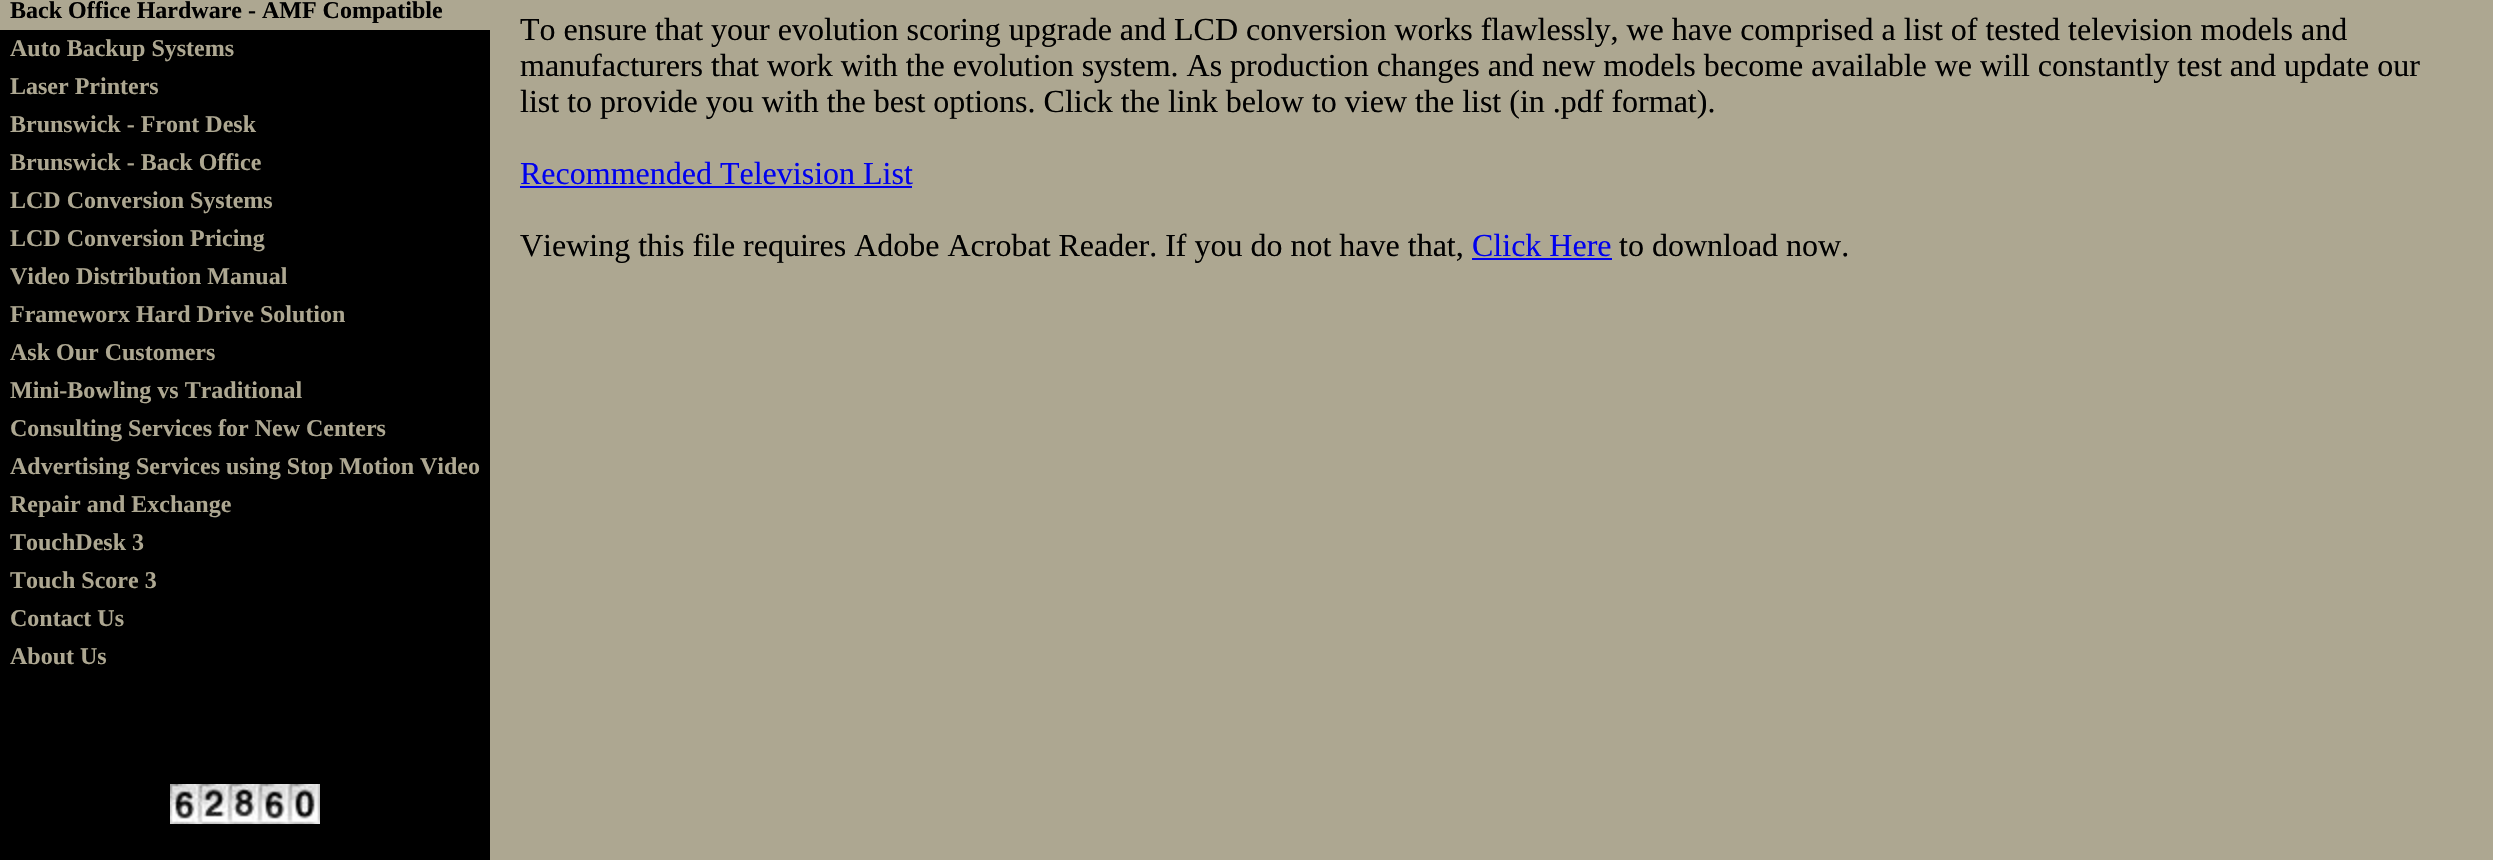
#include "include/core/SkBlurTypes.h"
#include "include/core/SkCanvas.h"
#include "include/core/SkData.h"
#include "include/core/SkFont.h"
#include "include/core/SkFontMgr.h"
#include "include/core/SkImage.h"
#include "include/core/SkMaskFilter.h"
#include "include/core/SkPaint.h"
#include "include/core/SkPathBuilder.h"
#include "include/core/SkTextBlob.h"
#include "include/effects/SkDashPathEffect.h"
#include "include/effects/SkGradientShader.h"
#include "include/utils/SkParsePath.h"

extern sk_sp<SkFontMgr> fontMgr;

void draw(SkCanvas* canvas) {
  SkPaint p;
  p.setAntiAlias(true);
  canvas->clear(SK_ColorBLACK);
  p.setColor(SkColorSetRGB(173, 167, 145));
  canvas->drawRect(SkRect::MakeLTRB(0, 0, 490, 30), p);
  canvas->drawRect(SkRect::MakeLTRB(490, 0, 2493, 860), p);
  p.setColor(SkColorSetRGB(0, 0, 238));
  canvas->drawRect(SkRect::MakeLTRB(520, 186, 912, 188), p);
  canvas->drawRect(SkRect::MakeLTRB(1472, 258, 1612, 260), p);
  canvas->drawImageRect(SkImages::DeferredFromEncodedData(SkData::MakeFromFileName("images/1.png")), SkRect::MakeLTRB(170, 784, 320, 824), SkSamplingOptions());
  SkFont font1(fontMgr->matchFamilyStyle("Liberation Serif", SkFontStyle::Bold()), 24);
  font1.setSubpixel(true);
  p.setColor(SK_ColorBLACK);
  canvas->drawString("Back Office Hardware - AMF Compatible", 10, 18, font1, p);
  p.setColor(SkColorSetRGB(173, 167, 145));
  canvas->drawString("Auto Backup Systems", 10, 56, font1, p);
  canvas->drawString("Laser Printers", 10, 94, font1, p);
  canvas->drawString("Brunswick - Front Desk", 10, 132, font1, p);
  canvas->drawString("Brunswick - Back Office", 10, 170, font1, p);
  canvas->drawString("LCD Conversion Systems", 10, 208, font1, p);
  canvas->drawString("LCD Conversion Pricing", 10, 246, font1, p);
  canvas->drawString("Video Distribution Manual", 10, 284, font1, p);
  canvas->drawString("Frameworx Hard Drive Solution", 10, 322, font1, p);
  canvas->drawString("Ask Our Customers", 10, 360, font1, p);
  canvas->drawString("Mini-Bowling vs Traditional", 10, 398, font1, p);
  canvas->drawString("Consulting Services for New Centers", 10, 436, font1, p);
  canvas->drawString("Advertising Services using Stop Motion Video", 10, 474, font1, p);
  canvas->drawString("Repair and Exchange", 10, 512, font1, p);
  canvas->drawString("TouchDesk 3", 10, 550, font1, p);
  canvas->drawString("Touch Score 3", 10, 588, font1, p);
  canvas->drawString("Contact Us", 10, 626, font1, p);
  canvas->drawString("About Us", 10, 664, font1, p);
  SkFont font2(fontMgr->matchFamilyStyle("Liberation Serif", SkFontStyle::Normal()), 32);
  font2.setSubpixel(true);
  p.setColor(SK_ColorBLACK);
  canvas->drawString("To ensure that your evolution scoring upgrade and LCD conversion works flawlessly, we have comprised a list of tested television models and", 520, 40, font2, p);
  canvas->drawString("manufacturers that work with the evolution system. As production changes and new models become available we will constantly test and update our", 520, 76, font2, p);
  canvas->drawString("list to provide you with the best options. Click the link below to view the list (in .pdf format).", 520, 112, font2, p);
  p.setColor(SkColorSetRGB(0, 0, 238));
  canvas->drawString("Recommended Television List", 520, 184, font2, p);
  p.setColor(SK_ColorBLACK);
  canvas->drawString("Viewing this file requires Adobe Acrobat Reader. If you do not have that,", 520, 256, font2, p);
  p.setColor(SkColorSetRGB(0, 0, 238));
  canvas->drawString("Click Here", 1472, 256, font2, p);
  p.setColor(SK_ColorBLACK);
  canvas->drawString("to download now.", 1619, 256, font2, p);
}
